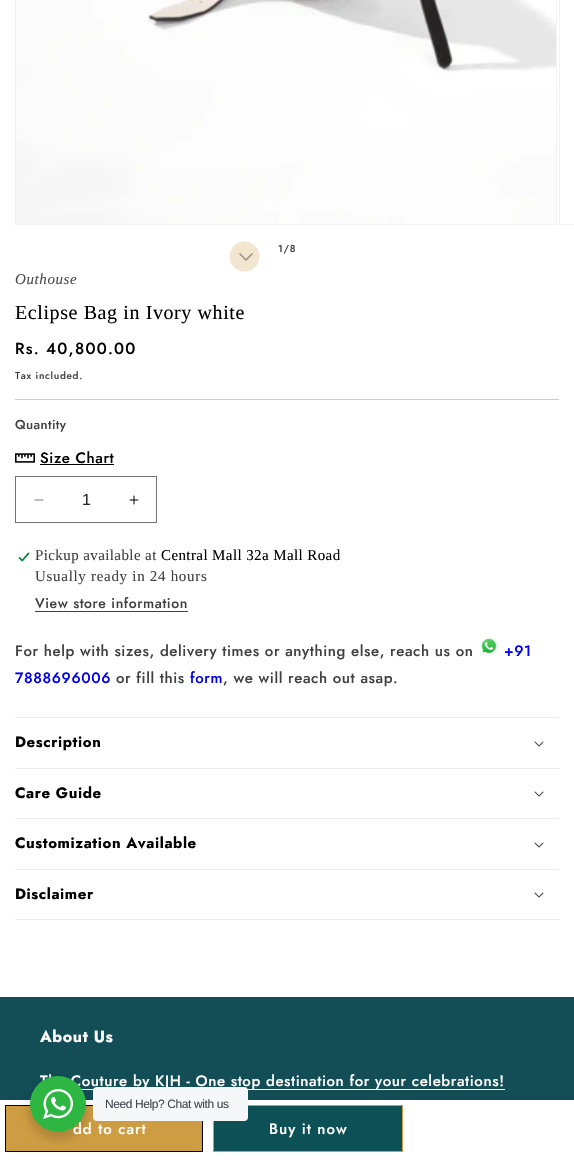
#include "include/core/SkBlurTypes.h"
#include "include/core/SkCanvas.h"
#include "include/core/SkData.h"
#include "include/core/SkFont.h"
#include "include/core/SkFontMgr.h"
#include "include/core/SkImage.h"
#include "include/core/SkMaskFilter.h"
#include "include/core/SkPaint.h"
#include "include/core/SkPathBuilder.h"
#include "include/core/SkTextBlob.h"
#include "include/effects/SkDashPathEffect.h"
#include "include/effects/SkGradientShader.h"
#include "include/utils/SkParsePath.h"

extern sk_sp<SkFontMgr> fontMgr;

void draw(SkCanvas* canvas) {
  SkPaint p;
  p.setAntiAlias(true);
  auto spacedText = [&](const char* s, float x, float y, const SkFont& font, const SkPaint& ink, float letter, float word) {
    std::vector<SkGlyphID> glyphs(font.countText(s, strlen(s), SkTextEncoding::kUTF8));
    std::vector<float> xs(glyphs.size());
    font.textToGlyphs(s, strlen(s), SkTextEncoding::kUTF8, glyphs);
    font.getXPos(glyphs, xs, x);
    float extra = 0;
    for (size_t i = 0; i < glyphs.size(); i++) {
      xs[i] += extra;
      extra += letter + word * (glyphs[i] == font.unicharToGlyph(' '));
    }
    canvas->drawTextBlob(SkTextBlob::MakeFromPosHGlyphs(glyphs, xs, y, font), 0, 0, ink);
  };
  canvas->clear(SK_ColorWHITE);
  p.setStyle(SkPaint::kStroke_Style);
  p.setStrokeWidth(1);
  p.setColor(SkColorSetRGB(242, 242, 242));
  canvas->drawRect(SkRect::MakeLTRB(15.5f, -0.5f, 556.5f, 224.5f), p);
  canvas->drawImageRect(SkImages::DeferredFromEncodedData(SkData::MakeFromFileName("images/1.png")), SkRect::MakeLTRB(16, 0, 556, 224), SkSamplingOptions());
  canvas->drawRect(SkRect::MakeLTRB(559.5f, -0.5f, 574.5f, 224.5f), p);
  p.setStyle(SkPaint::kFill_Style);
  p.setColor(SkColorSetRGB(243, 230, 208));
  canvas->drawPath(SkPathBuilder().moveTo(259.5f, 256.5f).cubicTo(259.5f, 265, 253, 271.5f, 244.5f, 271.5f).cubicTo(236.5f, 271.5f, 229.5f, 265, 229.5f, 256.5f).cubicTo(229.5f, 248, 236.5f, 241.5f, 244.5f, 241.5f).cubicTo(253, 241.5f, 259.5f, 248, 259.5f, 256.5f).close().detach(), p);
  canvas->drawImageRect(SkImages::DeferredFromEncodedData(SkData::MakeFromFileName("images/2.png")), SkRect::MakeLTRB(239, 253, 253, 261), SkSamplingOptions());
  p.setColor(SkColorSetRGB(204, 204, 204));
  canvas->drawRect(SkRect::MakeLTRB(15, 399, 559, 400), p);
  canvas->drawImageRect(SkImages::DeferredFromEncodedData(SkData::MakeFromFileName("images/3.png")), SkRect::MakeLTRB(15, 453, 35, 463), SkSamplingOptions());
  p.setColor(SK_ColorBLACK);
  canvas->drawRect(SkRect::MakeLTRB(40, 464, 114, 465), p);
  canvas->drawImageRect(SkImages::DeferredFromEncodedData(SkData::MakeFromFileName("images/4.png")), SkRect::MakeLTRB(34, 499, 44, 501), SkSamplingOptions());
  canvas->drawImageRect(SkImages::DeferredFromEncodedData(SkData::MakeFromFileName("images/5.png")), SkRect::MakeLTRB(129, 495, 139, 505), SkSamplingOptions());
  p.setStyle(SkPaint::kStroke_Style);
  p.setColor(SkColorSetRGB(115, 115, 115));
  canvas->drawRect(SkRect::MakeLTRB(15.5f, 476.5f, 156.5f, 522.5f), p);
  canvas->drawImageRect(SkImages::DeferredFromEncodedData(SkData::MakeFromFileName("images/6.png")), SkRect::MakeLTRB(18, 552, 30, 562), SkSamplingOptions());
  p.setStyle(SkPaint::kFill_Style);
  p.setColor(SkColorSetRGB(64, 64, 64));
  canvas->drawRect(SkRect::MakeLTRB(35, 611, 188, 612), p);
  p.setColor(SkColorSetRGB(206, 156, 66));
  canvas->drawRect(SkRect::MakeLTRB(6, 1106, 202, 1151), p);
  p.setStyle(SkPaint::kStroke_Style);
  p.setColor(SK_ColorBLACK);
  canvas->drawRect(SkRect::MakeLTRB(5.5f, 1105.5f, 202.5f, 1151.5f), p);
  p.setStyle(SkPaint::kFill_Style);
  p.setColor(SkColorSetRGB(13, 81, 87));
  canvas->drawRect(SkRect::MakeLTRB(214, 1106, 402, 1151), p);
  p.setStyle(SkPaint::kStroke_Style);
  p.setColor(SkColorSetRGB(206, 156, 66));
  canvas->drawRect(SkRect::MakeLTRB(213.5f, 1105.5f, 402.5f, 1151.5f), p);
  canvas->drawImageRect(SkImages::DeferredFromEncodedData(SkData::MakeFromFileName("images/7.png")), SkRect::MakeLTRB(480, 637, 498, 655), SkSamplingOptions());
  p.setStyle(SkPaint::kFill_Style);
  p.setColor(SkColorSetRGB(235, 235, 235));
  canvas->drawRect(SkRect::MakeLTRB(15, 717, 559, 718), p);
  canvas->drawRect(SkRect::MakeLTRB(15, 768, 559, 769), p);
  canvas->drawImageRect(SkImages::DeferredFromEncodedData(SkData::MakeFromFileName("images/8.png")), SkRect::MakeLTRB(534, 741, 544, 747), SkSamplingOptions());
  canvas->drawRect(SkRect::MakeLTRB(15, 818, 559, 819), p);
  canvas->drawImageRect(SkImages::DeferredFromEncodedData(SkData::MakeFromFileName("images/8.png")), SkRect::MakeLTRB(534, 791, 544, 797), SkSamplingOptions());
  canvas->drawRect(SkRect::MakeLTRB(15, 869, 559, 870), p);
  canvas->drawImageRect(SkImages::DeferredFromEncodedData(SkData::MakeFromFileName("images/8.png")), SkRect::MakeLTRB(534, 842, 544, 848), SkSamplingOptions());
  canvas->drawRect(SkRect::MakeLTRB(15, 919, 559, 920), p);
  canvas->drawImageRect(SkImages::DeferredFromEncodedData(SkData::MakeFromFileName("images/8.png")), SkRect::MakeLTRB(534, 892, 544, 898), SkSamplingOptions());
  p.setColor(SkColorSetRGB(19, 77, 86));
  canvas->drawRect(SkRect::MakeLTRB(0, 997, 574, 1100), p);
  p.setColor(SK_ColorWHITE);
  canvas->drawRect(SkRect::MakeLTRB(81, 1089, 505, 1090), p);
  p.setColor(SkColorSetARGB(36, 0, 0, 0));
  p.setMaskFilter(SkMaskFilter::MakeBlur(kNormal_SkBlurStyle, 4));
  canvas->drawRoundRect(SkRect::MakeLTRB(28, 1080, 88, 1140), 30, 30, p);
  p.setMaskFilter(nullptr);
  SkFont font1(fontMgr->matchFamilyStyle("Jost", SkFontStyle(500, SkFontStyle::kNormal_Width, SkFontStyle::kUpright_Slant)), 10);
  font1.setSubpixel(true);
  p.setColor(SkColorSetRGB(64, 64, 64));
  spacedText("1/8", 278, 252, font1, p, 0.7f, 0);
  SkFont font2(fontMgr->matchFamilyStyle("Liberation Serif", SkFontStyle::Italic()), 15);
  font2.setSubpixel(true);
  p.setColor(SkColorSetRGB(77, 77, 77));
  spacedText("Outhouse", 15, 284, font2, p, 0.6f, 0);
  SkFont font3(fontMgr->matchFamilyStyle("Liberation Serif", SkFontStyle::Normal()), 20);
  font3.setSubpixel(true);
  p.setColor(SK_ColorBLACK);
  spacedText("Eclipse Bag in Ivory white", 15, 319, font3, p, 0.6f, 0);
  SkFont font4(fontMgr->matchFamilyStyle("Jost", SkFontStyle(500, SkFontStyle::kNormal_Width, SkFontStyle::kUpright_Slant)), 16);
  font4.setSubpixel(true);
  spacedText("Rs. 40,800.00", 15, 354, font4, p, 1.25f, 0);
  p.setColor(SkColorSetRGB(64, 64, 64));
  spacedText("Tax included.", 15, 379, font1, p, 0.7f, 0);
  SkFont font5(fontMgr->matchFamilyStyle("Jost", SkFontStyle(500, SkFontStyle::kNormal_Width, SkFontStyle::kUpright_Slant)), 13);
  font5.setSubpixel(true);
  spacedText("Quantity", 15, 429, font5, p, 0.4f, 0);
  SkFont font6(fontMgr->matchFamilyStyle("Jost", SkFontStyle(500, SkFontStyle::kNormal_Width, SkFontStyle::kUpright_Slant)), 15);
  font6.setSubpixel(true);
  p.setColor(SK_ColorBLACK);
  spacedText("Size Chart", 40, 463, font6, p, 0.6f, 0);
  SkFont font7(fontMgr->matchFamilyStyle("Liberation Sans", SkFontStyle::Normal()), 16);
  font7.setSubpixel(true);
  p.setColor(SkColorSetRGB(38, 38, 38));
  canvas->drawString("1", 82, 505, font7, p);
  SkFont font8(fontMgr->matchFamilyStyle("Liberation Serif", SkFontStyle::Normal()), 15);
  font8.setSubpixel(true);
  p.setColor(SkColorSetRGB(64, 64, 64));
  spacedText("Pickup available at", 35, 560, font8, p, 0.4f, 0);
  p.setColor(SK_ColorBLACK);
  spacedText("Central Mall 32a Mall Road", 161, 560, font8, p, 0.4f, 0);
  p.setColor(SkColorSetRGB(64, 64, 64));
  spacedText("Usually ready in 24 hours", 35, 581, font8, p, 0.7f, 0);
  SkFont font9(fontMgr->matchFamilyStyle("Jost", SkFontStyle(500, SkFontStyle::kNormal_Width, SkFontStyle::kUpright_Slant)), 14);
  font9.setSubpixel(true);
  spacedText("View store information", 35, 608, font9, p, 0.6f, 0);
  p.setColor(SK_ColorWHITE);
  spacedText("dd to cart", 73, 1134, font6, p, 1, 0);
  spacedText("Buy it now", 269, 1134, font6, p, 1, 0);
  p.setColor(SkColorSetRGB(64, 64, 64));
  spacedText("For help with sizes, delivery times or anything else, reach us on", 15, 656, font6, p, 0.6f, 0);
  p.setColor(SkColorSetRGB(0, 0, 238));
  spacedText("+91", 504, 656, font6, p, 0.6f, 0);
  spacedText("7888696006", 15, 683, font6, p, 0.6f, 0);
  p.setColor(SkColorSetRGB(64, 64, 64));
  spacedText("or fill this", 116, 683, font6, p, 0.6f, 0);
  p.setColor(SkColorSetRGB(0, 0, 238));
  spacedText("form", 190, 683, font6, p, 0.6f, 0);
  p.setColor(SkColorSetRGB(64, 64, 64));
  spacedText(", we will reach out asap.", 223, 683, font6, p, 0.6f, 0);
  SkFont font10(fontMgr->matchFamilyStyle("Jost", SkFontStyle::Bold()), 15);
  font10.setSubpixel(true);
  p.setColor(SK_ColorBLACK);
  spacedText("Description", 15, 747, font10, p, 0.6f, 0);
  spacedText("Care Guide", 15, 798, font10, p, 0.6f, 0);
  spacedText("Customization Available", 15, 848, font10, p, 0.6f, 0);
  spacedText("Disclaimer", 15, 899, font10, p, 0.6f, 0);
  SkFont font11(fontMgr->matchFamilyStyle("Jost", SkFontStyle::Bold()), 16);
  font11.setSubpixel(true);
  p.setColor(SK_ColorWHITE);
  spacedText("About Us", 40, 1042, font11, p, 0.6f, 0);
  spacedText("The Couture by KJH - One stop destination for your celebrations!", 40, 1086, font6, p, 0.6f, 0);
  p.setColor(SkColorSetRGB(45, 183, 66));
  canvas->drawCircle(58, 1104, 28, p);
  canvas->drawImageRect(SkImages::DeferredFromEncodedData(SkData::MakeFromFileName("images/9.png")), SkRect::MakeLTRB(43, 1089, 73, 1119), SkSamplingOptions());
  p.setColor(SkColorSetRGB(245, 247, 249));
  canvas->drawRoundRect(SkRect::MakeLTRB(93, 1087, 248, 1121), 4, 4, p);
  SkFont font12(fontMgr->matchFamilyStyle("Liberation Sans", SkFontStyle::Normal()), 12);
  font12.setSubpixel(true);
  p.setColor(SkColorSetRGB(67, 71, 78));
  spacedText("Need Help? Chat with us", 105, 1108, font12, p, -0.4f, 0);
}
